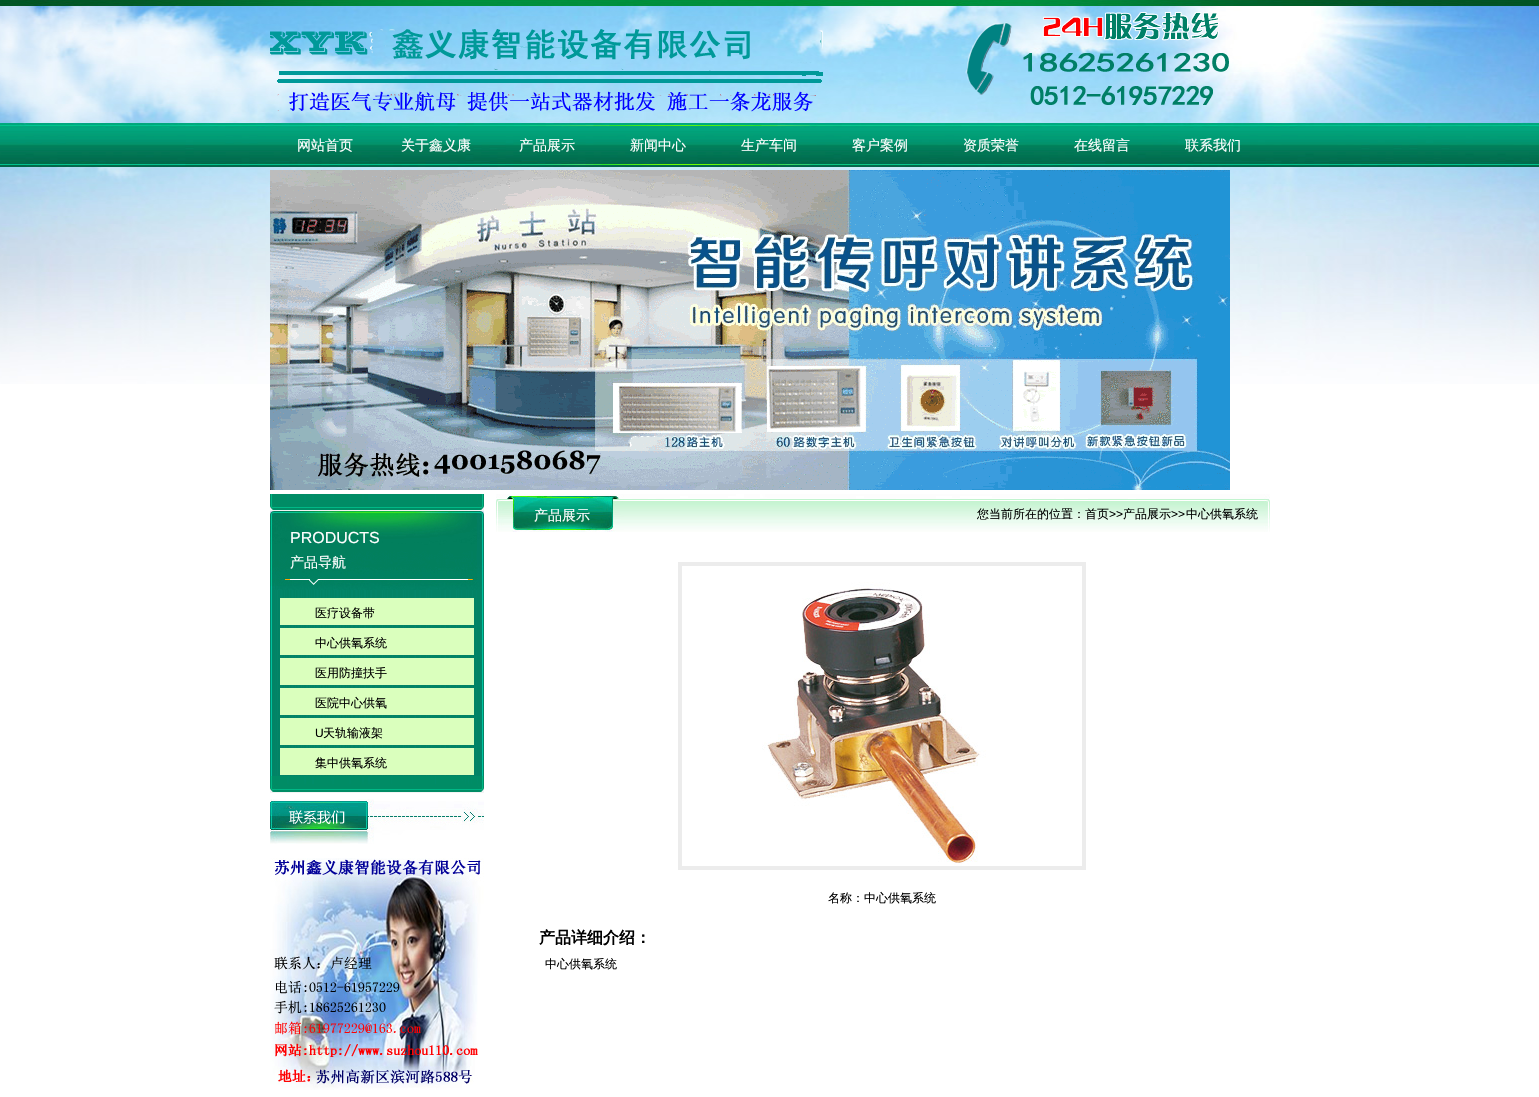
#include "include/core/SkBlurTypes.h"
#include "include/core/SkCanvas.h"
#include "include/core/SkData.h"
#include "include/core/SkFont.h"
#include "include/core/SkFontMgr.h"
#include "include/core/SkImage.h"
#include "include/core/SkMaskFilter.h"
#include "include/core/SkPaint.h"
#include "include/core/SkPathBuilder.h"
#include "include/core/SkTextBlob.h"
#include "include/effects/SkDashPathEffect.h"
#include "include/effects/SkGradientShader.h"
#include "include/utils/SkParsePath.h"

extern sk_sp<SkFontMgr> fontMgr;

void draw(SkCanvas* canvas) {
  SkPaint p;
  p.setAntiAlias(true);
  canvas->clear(SK_ColorWHITE);
  canvas->drawImageRect(SkImages::DeferredFromEncodedData(SkData::MakeFromFileName("images/1.png")), SkRect::MakeLTRB(0, 0, 1539, 384), SkSamplingOptions());
  canvas->drawImageRect(SkImages::DeferredFromEncodedData(SkData::MakeFromFileName("images/2.png")), SkRect::MakeLTRB(270, 29, 823, 112), SkSamplingOptions());
  canvas->drawImageRect(SkImages::DeferredFromEncodedData(SkData::MakeFromFileName("images/3.png")), SkRect::MakeLTRB(965, 12, 1229, 105), SkSamplingOptions());
  canvas->drawImageRect(SkImages::DeferredFromEncodedData(SkData::MakeFromFileName("images/4.png")), SkRect::MakeLTRB(270, 170, 1230, 490), SkSamplingOptions());
  canvas->drawImageRect(SkImages::DeferredFromEncodedData(SkData::MakeFromFileName("images/5.png")), SkRect::MakeLTRB(270, 494, 484, 511), SkSamplingOptions());
  canvas->drawImageRect(SkImages::DeferredFromEncodedData(SkData::MakeFromFileName("images/6.png")), SkRect::MakeLTRB(270, 511, 484, 590), SkSamplingOptions());
  canvas->drawImageRect(SkImages::DeferredFromEncodedData(SkData::MakeFromFileName("images/7.png")), SkRect::MakeLTRB(270, 590, 484, 776), SkSamplingOptions());
  p.setColor(SkColorSetRGB(218, 255, 189));
  canvas->drawRect(SkRect::MakeLTRB(280, 598, 474, 625), p);
  canvas->drawRect(SkRect::MakeLTRB(280, 628, 474, 655), p);
  canvas->drawRect(SkRect::MakeLTRB(280, 658, 474, 685), p);
  canvas->drawRect(SkRect::MakeLTRB(280, 688, 474, 715), p);
  canvas->drawRect(SkRect::MakeLTRB(280, 718, 474, 745), p);
  canvas->drawRect(SkRect::MakeLTRB(280, 748, 474, 775), p);
  canvas->drawImageRect(SkImages::DeferredFromEncodedData(SkData::MakeFromFileName("images/5.png")), SkRect::MakeLTRB(270, 776, 484, 793), SkSamplingOptions());
  canvas->drawImageRect(SkImages::DeferredFromEncodedData(SkData::MakeFromFileName("images/8.png")), SkRect::MakeLTRB(270, 799, 484, 844), SkSamplingOptions());
  canvas->drawImageRect(SkImages::DeferredFromEncodedData(SkData::MakeFromFileName("images/9.png")), SkRect::MakeLTRB(270, 858, 484, 1090), SkSamplingOptions());
  canvas->drawImageRect(SkImages::DeferredFromEncodedData(SkData::MakeFromFileName("images/10.png")), SkRect::MakeLTRB(496, 494, 1270, 532), SkSamplingOptions());
  p.setStyle(SkPaint::kStroke_Style);
  p.setStrokeWidth(4);
  p.setColor(SkColorSetRGB(236, 236, 236));
  canvas->drawRect(SkRect::MakeLTRB(680, 564, 1084, 868), p);
  canvas->drawImageRect(SkImages::DeferredFromEncodedData(SkData::MakeFromFileName("images/11.png")), SkRect::MakeLTRB(762, 582, 986, 866), SkSamplingOptions());
  SkFont font1(fontMgr->matchFamilyStyle("WenQuanYi Zen Hei", SkFontStyle(500, SkFontStyle::kNormal_Width, SkFontStyle::kUpright_Slant)), 14);
  font1.setSubpixel(true);
  p.setStyle(SkPaint::kFill_Style);
  p.setColor(SK_ColorWHITE);
  canvas->drawString("网站首页", 297, 150, font1, p);
  canvas->drawString("关于鑫义康", 401, 150, font1, p);
  canvas->drawString("产品展示", 519, 150, font1, p);
  canvas->drawString("新闻中心", 630, 150, font1, p);
  canvas->drawString("生产车间", 741, 150, font1, p);
  canvas->drawString("客户案例", 852, 150, font1, p);
  canvas->drawString("资质荣誉", 963, 150, font1, p);
  canvas->drawString("在线留言", 1074, 150, font1, p);
  canvas->drawString("联系我们", 1185, 150, font1, p);
  SkFont font2(fontMgr->matchFamilyStyle("Liberation Sans", SkFontStyle::Normal()), 16);
  font2.setSubpixel(true);
  canvas->drawString("PRODUCTS", 290, 543, font2, p);
  canvas->drawString("产品导航", 290, 567, font1, p);
  SkFont font3(fontMgr->matchFamilyStyle("WenQuanYi Zen Hei", SkFontStyle(500, SkFontStyle::kNormal_Width, SkFontStyle::kUpright_Slant)), 12);
  font3.setSubpixel(true);
  p.setColor(SK_ColorBLACK);
  canvas->drawString("医疗设备带", 315, 617, font3, p);
  canvas->drawString("中心供氧系统", 315, 647, font3, p);
  canvas->drawString("医用防撞扶手", 315, 677, font3, p);
  canvas->drawString("医院中心供氧", 315, 707, font3, p);
  SkFont font4(fontMgr->matchFamilyStyle("Liberation Sans", SkFontStyle::Normal()), 12);
  font4.setSubpixel(true);
  canvas->drawString("U", 315, 737, font4, p);
  canvas->drawString("天轨输液架", 323, 737, font3, p);
  canvas->drawString("集中供氧系统", 315, 767, font3, p);
  p.setColor(SK_ColorWHITE);
  canvas->drawString("产品展示", 534, 520, font1, p);
  p.setColor(SK_ColorBLACK);
  canvas->drawString("您当前所在的位置：首页", 977, 518, font3, p);
  canvas->drawString(">>", 1109, 518, font4, p);
  canvas->drawString("产品展示", 1123, 518, font3, p);
  canvas->drawString(">>", 1171, 518, font4, p);
  canvas->drawString("中心供氧系统", 1186, 518, font3, p);
  canvas->drawString("名称：中心供氧系统", 828, 902, font3, p);
  SkFont font5(fontMgr->matchFamilyStyle("WenQuanYi Zen Hei", SkFontStyle::Bold()), 16);
  font5.setSubpixel(true);
  canvas->drawString("产品详细介绍：", 539, 943, font5, p);
  canvas->drawString("中心供氧系统", 545, 968, font3, p);
}
